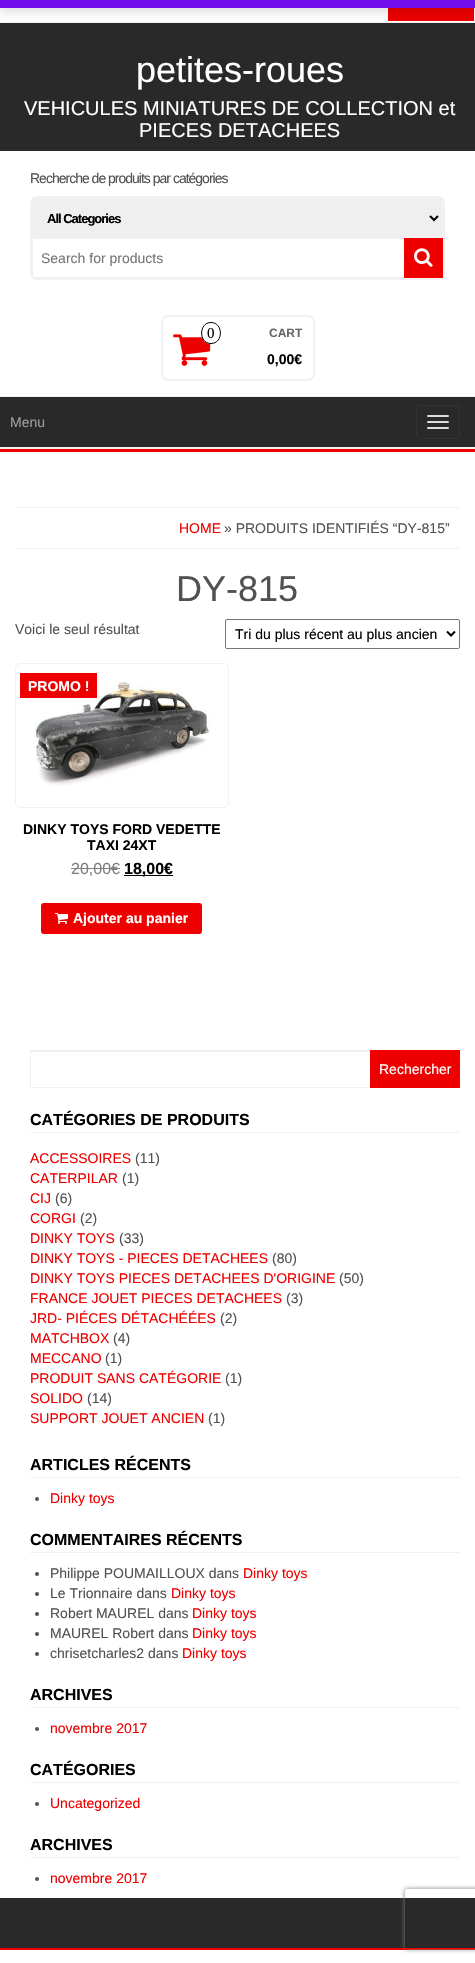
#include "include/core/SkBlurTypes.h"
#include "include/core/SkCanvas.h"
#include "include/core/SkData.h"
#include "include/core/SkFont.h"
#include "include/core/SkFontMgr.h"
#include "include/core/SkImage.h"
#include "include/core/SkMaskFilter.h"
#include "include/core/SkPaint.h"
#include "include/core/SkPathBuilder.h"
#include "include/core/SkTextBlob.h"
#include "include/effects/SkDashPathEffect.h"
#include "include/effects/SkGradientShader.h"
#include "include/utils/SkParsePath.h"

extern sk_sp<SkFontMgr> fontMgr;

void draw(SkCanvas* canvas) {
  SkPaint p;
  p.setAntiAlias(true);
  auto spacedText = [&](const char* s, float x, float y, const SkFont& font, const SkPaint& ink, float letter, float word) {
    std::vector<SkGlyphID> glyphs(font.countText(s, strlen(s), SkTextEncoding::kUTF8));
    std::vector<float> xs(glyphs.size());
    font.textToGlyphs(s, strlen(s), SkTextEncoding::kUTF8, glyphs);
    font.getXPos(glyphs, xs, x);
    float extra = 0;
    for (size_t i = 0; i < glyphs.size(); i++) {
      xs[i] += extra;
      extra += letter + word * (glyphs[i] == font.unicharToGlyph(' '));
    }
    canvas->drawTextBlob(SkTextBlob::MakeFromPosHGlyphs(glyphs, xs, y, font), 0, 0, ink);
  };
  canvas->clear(SkColorSetRGB(239, 0, 0));
  p.setColor(SK_ColorWHITE);
  canvas->drawRect(SkRect::MakeLTRB(0, 8, 475, 22), p);
  p.setColor(SkColorSetRGB(241, 241, 241));
  canvas->drawRect(SkRect::MakeLTRB(0, 22, 475, 23), p);
  p.setColor(SkColorSetRGB(239, 0, 0));
  canvas->drawRect(SkRect::MakeLTRB(388, 8, 474, 21), p);
  p.setColor(SkColorSetRGB(241, 241, 241));
  canvas->drawRect(SkRect::MakeLTRB(474, 0, 475, 21), p);
  p.setColor(SkColorSetRGB(41, 41, 41));
  canvas->drawRect(SkRect::MakeLTRB(0, 23, 475, 447), p);
  p.setColor(SkColorSetARGB(51, 0, 0, 0));
  p.setMaskFilter(SkMaskFilter::MakeBlur(kNormal_SkBlurStyle, 7));
  canvas->drawRect(SkRect::MakeLTRB(0, -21, 475, 9), p);
  p.setMaskFilter(nullptr);
  p.setColor(SkColorSetRGB(114, 14, 236));
  canvas->drawRect(SkRect::MakeLTRB(0, 0, 475, 8), p);
  p.setColor(SkColorSetRGB(241, 241, 241));
  canvas->drawRect(SkRect::MakeLTRB(0, 447, 475, 449), p);
  p.setColor(SK_ColorWHITE);
  canvas->drawRect(SkRect::MakeLTRB(0, 151, 475, 396), p);
  p.setStyle(SkPaint::kStroke_Style);
  p.setStrokeWidth(2);
  p.setColor(SkColorSetRGB(241, 241, 241));
  canvas->drawRoundRect(SkRect::MakeLTRB(31, 197, 444, 279), 6, 6, p);
  p.setStyle(SkPaint::kFill_Style);
  p.setColor(SkColorSetRGB(239, 239, 239));
  canvas->drawRect(SkRect::MakeLTRB(32.5f, 198.5f, 442.5f, 237.5f), p);
  p.setStyle(SkPaint::kStroke_Style);
  p.setStrokeWidth(1);
  p.setColor(SkColorSetRGB(241, 241, 241));
  canvas->drawRect(SkRect::MakeLTRB(32.5f, 198.5f, 442.5f, 237.5f), p);
  p.setStrokeWidth(2);
  p.setColor(SK_ColorBLACK);
  canvas->drawPath(SkPathBuilder().moveTo(430, 216).lineTo(434, 220).lineTo(438, 216).detach(), p);
  p.setStyle(SkPaint::kFill_Style);
  p.setColor(SK_ColorWHITE);
  canvas->drawRect(SkRect::MakeLTRB(33, 276, 34, 277), p);
  p.setStyle(SkPaint::kStroke_Style);
  p.setStrokeWidth(1);
  p.setColor(SkColorSetRGB(241, 241, 241));
  canvas->drawRect(SkRect::MakeLTRB(32.5f, 238.5f, 442.5f, 277.5f), p);
  p.setStyle(SkPaint::kFill_Style);
  p.setColor(SkColorSetRGB(239, 0, 0));
  canvas->drawRect(SkRect::MakeLTRB(404, 238, 443, 278), p);
  canvas->drawImageRect(SkImages::DeferredFromEncodedData(SkData::MakeFromFileName("images/1.png")), SkRect::MakeLTRB(414, 248, 433, 267), SkSamplingOptions());
  p.setStyle(SkPaint::kStroke_Style);
  p.setStrokeWidth(2);
  p.setColor(SkColorSetRGB(241, 241, 241));
  canvas->drawRoundRect(SkRect::MakeLTRB(162, 316, 314, 380), 6, 6, p);
  canvas->drawImageRect(SkImages::DeferredFromEncodedData(SkData::MakeFromFileName("images/2.png")), SkRect::MakeLTRB(173, 334, 211, 366), SkSamplingOptions());
  p.setStyle(SkPaint::kFill_Style);
  p.setColor(SK_ColorWHITE);
  canvas->drawOval(SkRect::MakeLTRB(201, 322, 221, 344), p);
  p.setStyle(SkPaint::kStroke_Style);
  p.setStrokeWidth(1);
  p.setColor(SK_ColorBLACK);
  canvas->drawPath(SkPathBuilder().moveTo(211, 322.5f).cubicTo(223.5f, 322.5f, 223.5f, 343.5f, 211, 343.5f).cubicTo(198.5f, 343.5f, 198.5f, 322.5f, 211, 322.5f).close().detach(), p);
  p.setStyle(SkPaint::kFill_Style);
  p.setColor(SkColorSetRGB(241, 241, 241));
  canvas->drawRect(SkRect::MakeLTRB(0, 396, 475, 397), p);
  p.setStyle(SkPaint::kStroke_Style);
  p.setColor(SkColorSetRGB(51, 51, 51));
  canvas->drawRoundRect(SkRect::MakeLTRB(416.5f, 405.5f, 459.5f, 438.5f), 3.5f, 3.5f, p);
  p.setStyle(SkPaint::kFill_Style);
  p.setColor(SkColorSetRGB(221, 221, 221));
  canvas->drawRoundRect(SkRect::MakeLTRB(427, 415, 449, 417), 1, 1, p);
  canvas->drawRoundRect(SkRect::MakeLTRB(427, 421, 449, 423), 1, 1, p);
  canvas->drawRoundRect(SkRect::MakeLTRB(427, 427, 449, 429), 1, 1, p);
  p.setColor(SK_ColorWHITE);
  canvas->drawRect(SkRect::MakeLTRB(0, 452, 475, 1898), p);
  p.setColor(SkColorSetRGB(241, 241, 241));
  canvas->drawRect(SkRect::MakeLTRB(15, 507, 460, 508), p);
  canvas->drawRect(SkRect::MakeLTRB(15, 548, 460, 549), p);
  p.setStyle(SkPaint::kStroke_Style);
  p.setColor(SkColorSetRGB(118, 118, 118));
  canvas->drawRoundRect(SkRect::MakeLTRB(225.5f, 619.5f, 459.5f, 648.5f), 1.5f, 1.5f, p);
  p.setStrokeWidth(2);
  p.setColor(SK_ColorBLACK);
  canvas->drawPath(SkPathBuilder().moveTo(447, 631.5f).lineTo(451, 635.5f).lineTo(455, 631.5f).detach(), p);
  p.setStrokeWidth(1);
  p.setColor(SkColorSetRGB(241, 241, 241));
  canvas->drawRoundRect(SkRect::MakeLTRB(15.5f, 663.5f, 228.5f, 807.5f), 4.5f, 4.5f, p);
  canvas->drawImageRect(SkImages::DeferredFromEncodedData(SkData::MakeFromFileName("images/3.png")), SkRect::MakeLTRB(34, 682, 211, 786), SkSamplingOptions());
  p.setStyle(SkPaint::kFill_Style);
  p.setColor(SkColorSetRGB(239, 0, 0));
  canvas->drawRect(SkRect::MakeLTRB(20, 673, 97, 698), p);
  p.setColor(SkColorSetRGB(128, 128, 128));
  canvas->drawRect(SkRect::MakeLTRB(71, 868, 111, 869), p);
  canvas->drawRect(SkRect::MakeLTRB(111, 868, 120, 869), p);
  p.setColor(SK_ColorBLACK);
  canvas->drawRect(SkRect::MakeLTRB(124, 875, 173, 876), p);
  p.setColor(SkColorSetRGB(239, 0, 0));
  canvas->drawRoundRect(SkRect::MakeLTRB(41, 903, 202, 934), 3, 3, p);
  canvas->drawImageRect(SkImages::DeferredFromEncodedData(SkData::MakeFromFileName("images/4.png")), SkRect::MakeLTRB(55, 913, 68, 924), SkSamplingOptions());
  p.setColor(SkColorSetRGB(236, 236, 236));
  canvas->drawRect(SkRect::MakeLTRB(31, 1051, 370, 1052), p);
  p.setStyle(SkPaint::kStroke_Style);
  p.setColor(SkColorSetRGB(241, 241, 241));
  canvas->drawRect(SkRect::MakeLTRB(30.5f, 1050.5f, 459.5f, 1087.5f), p);
  p.setStyle(SkPaint::kFill_Style);
  p.setColor(SkColorSetRGB(239, 0, 0));
  canvas->drawRect(SkRect::MakeLTRB(370, 1050, 460, 1088), p);
  p.setColor(SkColorSetRGB(241, 241, 241));
  canvas->drawRect(SkRect::MakeLTRB(30, 1132, 460, 1133), p);
  canvas->drawRect(SkRect::MakeLTRB(30, 1477, 460, 1478), p);
  p.setColor(SkColorSetRGB(81, 81, 81));
  canvas->drawCircle(37, 1499, 2, p);
  p.setColor(SkColorSetRGB(241, 241, 241));
  canvas->drawRect(SkRect::MakeLTRB(30, 1552, 460, 1553), p);
  p.setColor(SkColorSetRGB(81, 81, 81));
  canvas->drawCircle(37, 1574, 2, p);
  canvas->drawCircle(37, 1594, 2, p);
  canvas->drawCircle(37, 1614, 2, p);
  canvas->drawCircle(37, 1634, 2, p);
  canvas->drawCircle(37, 1654, 2, p);
  p.setColor(SkColorSetRGB(241, 241, 241));
  canvas->drawRect(SkRect::MakeLTRB(30, 1707, 460, 1708), p);
  p.setColor(SkColorSetRGB(81, 81, 81));
  canvas->drawCircle(37, 1729, 2, p);
  p.setColor(SkColorSetRGB(241, 241, 241));
  canvas->drawRect(SkRect::MakeLTRB(30, 1782, 460, 1783), p);
  p.setColor(SkColorSetRGB(81, 81, 81));
  canvas->drawCircle(37, 1804, 2, p);
  p.setColor(SkColorSetRGB(241, 241, 241));
  canvas->drawRect(SkRect::MakeLTRB(30, 1857, 460, 1858), p);
  p.setColor(SkColorSetRGB(81, 81, 81));
  canvas->drawCircle(37, 1879, 2, p);
  p.setColor(SkColorSetRGB(41, 41, 41));
  canvas->drawRect(SkRect::MakeLTRB(0, 1898, 475, 1948), p);
  p.setColor(SK_ColorWHITE);
  canvas->drawRect(SkRect::MakeLTRB(0, 1950, 475, 1963), p);
  canvas->save();
  canvas->clipPath(SkPathBuilder(SkPathFillType::kEvenOdd).moveTo(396, 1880).lineTo(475, 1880).lineTo(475, 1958).lineTo(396, 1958).close().moveTo(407, 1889).lineTo(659, 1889).cubicTo(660, 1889, 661, 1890, 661, 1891).lineTo(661, 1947).cubicTo(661, 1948, 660, 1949, 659, 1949).lineTo(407, 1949).cubicTo(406, 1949, 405, 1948, 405, 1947).lineTo(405, 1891).cubicTo(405, 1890, 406, 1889, 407, 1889).close().detach(), true);
  p.setColor(SkColorSetRGB(128, 128, 128));
  p.setMaskFilter(SkMaskFilter::MakeBlur(kNormal_SkBlurStyle, 2.5f));
  canvas->drawRoundRect(SkRect::MakeLTRB(405, 1889, 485, 1949), 2, 2, p);
  p.setMaskFilter(nullptr);
  canvas->restore();
  SkFont font1(fontMgr->matchFamilyStyle("Liberation Sans", SkFontStyle::Normal()), 36);
  font1.setSubpixel(true);
  p.setColor(SK_ColorWHITE);
  canvas->drawString("petites-roues", 136, 82, font1, p);
  SkFont font2(fontMgr->matchFamilyStyle("Liberation Sans", SkFontStyle::Normal()), 20);
  font2.setSubpixel(true);
  canvas->drawString("VEHICULES MINIATURES DE COLLECTION et", 24, 115, font2, p);
  canvas->drawString("PIECES DETACHEES", 139, 137, font2, p);
  SkFont font3(fontMgr->matchFamilyStyle("Liberation Sans", SkFontStyle::Normal()), 14);
  font3.setSubpixel(true);
  p.setColor(SkColorSetRGB(81, 81, 81));
  spacedText("Recherche de produits par catégories", 30, 183, font3, p, -1, 0);
  SkFont font4(fontMgr->matchFamilyStyle("Liberation Sans", SkFontStyle::Bold()), 13);
  font4.setSubpixel(true);
  p.setColor(SK_ColorBLACK);
  spacedText("All Categories", 47, 223, font4, p, -1, 0);
  p.setColor(SkColorSetRGB(117, 117, 117));
  canvas->drawString("Search for products", 41, 263, font3, p);
  SkFont font5(fontMgr->matchFamilyStyle("Liberation Serif", SkFontStyle::Normal()), 15);
  font5.setSubpixel(true);
  p.setColor(SK_ColorBLACK);
  canvas->drawString("0", 207, 338, font5, p);
  SkFont font6(fontMgr->matchFamilyStyle("Liberation Sans", SkFontStyle::Bold()), 12);
  font6.setSubpixel(true);
  p.setColor(SkColorSetRGB(102, 102, 102));
  canvas->drawString("CART", 269, 337, font6, p);
  SkFont font7(fontMgr->matchFamilyStyle("Liberation Sans", SkFontStyle::Bold()), 14);
  font7.setSubpixel(true);
  p.setColor(SK_ColorBLACK);
  canvas->drawString("0,00€", 267, 364, font7, p);
  p.setColor(SkColorSetRGB(157, 157, 157));
  canvas->drawString("Menu", 10, 427, font3, p);
  p.setColor(SkColorSetRGB(239, 0, 0));
  canvas->drawString("HOME", 179, 533, font3, p);
  p.setColor(SkColorSetRGB(81, 81, 81));
  canvas->drawString("» PRODUITS IDENTIFIÉS “DY-815”", 224, 533, font3, p);
  canvas->drawString("DY-815", 176, 601, font1, p);
  canvas->drawString("Voici le seul résultat", 15, 634, font3, p);
  p.setColor(SK_ColorBLACK);
  canvas->drawString("Tri du plus récent au plus ancien", 235, 639, font3, p);
  p.setColor(SK_ColorWHITE);
  canvas->drawString("PROMO !", 28, 691, font7, p);
  p.setColor(SK_ColorBLACK);
  canvas->drawString("DINKY TOYS FORD VEDETTE", 23, 834, font7, p);
  canvas->drawString("TAXI 24XT", 87, 850, font7, p);
  SkFont font8(fontMgr->matchFamilyStyle("Liberation Sans", SkFontStyle::Normal()), 16);
  font8.setSubpixel(true);
  p.setColor(SkColorSetRGB(128, 128, 128));
  canvas->drawString("20,00", 71, 874, font8, p);
  canvas->drawString("€", 111, 874, font8, p);
  SkFont font9(fontMgr->matchFamilyStyle("Liberation Sans", SkFontStyle::Bold()), 16);
  font9.setSubpixel(true);
  p.setColor(SK_ColorBLACK);
  canvas->drawString("18,00€", 124, 874, font9, p);
  p.setColor(SK_ColorWHITE);
  canvas->drawString("Ajouter au panier", 73, 923, font7, p);
  canvas->drawString("Rechercher", 379, 1074, font3, p);
  p.setColor(SK_ColorBLACK);
  canvas->drawString("CATÉGORIES DE PRODUITS", 30, 1125, font9, p);
  p.setColor(SkColorSetRGB(239, 0, 0));
  canvas->drawString("ACCESSOIRES", 30, 1163, font3, p);
  p.setColor(SkColorSetRGB(81, 81, 81));
  canvas->drawString("(11)", 135, 1163, font3, p);
  p.setColor(SkColorSetRGB(239, 0, 0));
  canvas->drawString("CATERPILAR", 30, 1183, font3, p);
  p.setColor(SkColorSetRGB(81, 81, 81));
  canvas->drawString("(1)", 122, 1183, font3, p);
  p.setColor(SkColorSetRGB(239, 0, 0));
  canvas->drawString("CIJ", 30, 1203, font3, p);
  p.setColor(SkColorSetRGB(81, 81, 81));
  canvas->drawString("(6)", 55, 1203, font3, p);
  p.setColor(SkColorSetRGB(239, 0, 0));
  canvas->drawString("CORGI", 30, 1223, font3, p);
  p.setColor(SkColorSetRGB(81, 81, 81));
  canvas->drawString("(2)", 80, 1223, font3, p);
  p.setColor(SkColorSetRGB(239, 0, 0));
  canvas->drawString("DINKY TOYS", 30, 1243, font3, p);
  p.setColor(SkColorSetRGB(81, 81, 81));
  canvas->drawString("(33)", 119, 1243, font3, p);
  p.setColor(SkColorSetRGB(239, 0, 0));
  canvas->drawString("DINKY TOYS - PIECES DETACHEES", 30, 1263, font3, p);
  p.setColor(SkColorSetRGB(81, 81, 81));
  canvas->drawString("(80)", 272, 1263, font3, p);
  p.setColor(SkColorSetRGB(239, 0, 0));
  canvas->drawString("DINKY TOYS PIECES DETACHEES D'ORIGINE", 30, 1283, font3, p);
  p.setColor(SkColorSetRGB(81, 81, 81));
  canvas->drawString("(50)", 339, 1283, font3, p);
  p.setColor(SkColorSetRGB(239, 0, 0));
  canvas->drawString("FRANCE JOUET PIECES DETACHEES", 30, 1303, font3, p);
  p.setColor(SkColorSetRGB(81, 81, 81));
  canvas->drawString("(3)", 286, 1303, font3, p);
  p.setColor(SkColorSetRGB(239, 0, 0));
  canvas->drawString("JRD- PIÉCES DÉTACHÉÉES", 30, 1323, font3, p);
  p.setColor(SkColorSetRGB(81, 81, 81));
  canvas->drawString("(2)", 220, 1323, font3, p);
  p.setColor(SkColorSetRGB(239, 0, 0));
  canvas->drawString("MATCHBOX", 30, 1343, font3, p);
  p.setColor(SkColorSetRGB(81, 81, 81));
  canvas->drawString("(4)", 113, 1343, font3, p);
  p.setColor(SkColorSetRGB(239, 0, 0));
  canvas->drawString("MECCANO", 30, 1363, font3, p);
  p.setColor(SkColorSetRGB(81, 81, 81));
  canvas->drawString("(1)", 105, 1363, font3, p);
  p.setColor(SkColorSetRGB(239, 0, 0));
  canvas->drawString("PRODUIT SANS CATÉGORIE", 30, 1383, font3, p);
  p.setColor(SkColorSetRGB(81, 81, 81));
  canvas->drawString("(1)", 225, 1383, font3, p);
  p.setColor(SkColorSetRGB(239, 0, 0));
  canvas->drawString("SOLIDO", 30, 1403, font3, p);
  p.setColor(SkColorSetRGB(81, 81, 81));
  canvas->drawString("(14)", 87, 1403, font3, p);
  p.setColor(SkColorSetRGB(239, 0, 0));
  canvas->drawString("SUPPORT JOUET ANCIEN", 30, 1423, font3, p);
  p.setColor(SkColorSetRGB(81, 81, 81));
  canvas->drawString("(1)", 208, 1423, font3, p);
  p.setColor(SK_ColorBLACK);
  canvas->drawString("ARTICLES RÉCENTS", 30, 1470, font9, p);
  p.setColor(SkColorSetRGB(239, 0, 0));
  canvas->drawString("Dinky toys", 50, 1503, font3, p);
  p.setColor(SK_ColorBLACK);
  canvas->drawString("COMMENTAIRES RÉCENTS", 30, 1545, font9, p);
  p.setColor(SkColorSetRGB(81, 81, 81));
  canvas->drawString("Philippe POUMAILLOUX dans", 50, 1578, font3, p);
  p.setColor(SkColorSetRGB(239, 0, 0));
  canvas->drawString("Dinky toys", 243, 1578, font3, p);
  p.setColor(SkColorSetRGB(81, 81, 81));
  canvas->drawString("Le Trionnaire dans", 50, 1598, font3, p);
  p.setColor(SkColorSetRGB(239, 0, 0));
  canvas->drawString("Dinky toys", 171, 1598, font3, p);
  p.setColor(SkColorSetRGB(81, 81, 81));
  canvas->drawString("Robert MAUREL dans", 50, 1618, font3, p);
  p.setColor(SkColorSetRGB(239, 0, 0));
  canvas->drawString("Dinky toys", 192, 1618, font3, p);
  p.setColor(SkColorSetRGB(81, 81, 81));
  canvas->drawString("MAUREL Robert dans", 50, 1638, font3, p);
  p.setColor(SkColorSetRGB(239, 0, 0));
  canvas->drawString("Dinky toys", 192, 1638, font3, p);
  p.setColor(SkColorSetRGB(81, 81, 81));
  canvas->drawString("chrisetcharles2 dans", 50, 1658, font3, p);
  p.setColor(SkColorSetRGB(239, 0, 0));
  canvas->drawString("Dinky toys", 182, 1658, font3, p);
  p.setColor(SK_ColorBLACK);
  canvas->drawString("ARCHIVES", 30, 1700, font9, p);
  p.setColor(SkColorSetRGB(239, 0, 0));
  canvas->drawString("novembre 2017", 50, 1733, font3, p);
  p.setColor(SK_ColorBLACK);
  canvas->drawString("CATÉGORIES", 30, 1775, font9, p);
  p.setColor(SkColorSetRGB(239, 0, 0));
  canvas->drawString("Uncategorized", 50, 1808, font3, p);
  p.setColor(SK_ColorBLACK);
  canvas->drawString("ARCHIVES", 30, 1850, font9, p);
  p.setColor(SkColorSetRGB(239, 0, 0));
  canvas->drawString("novembre 2017", 50, 1883, font3, p);
}
